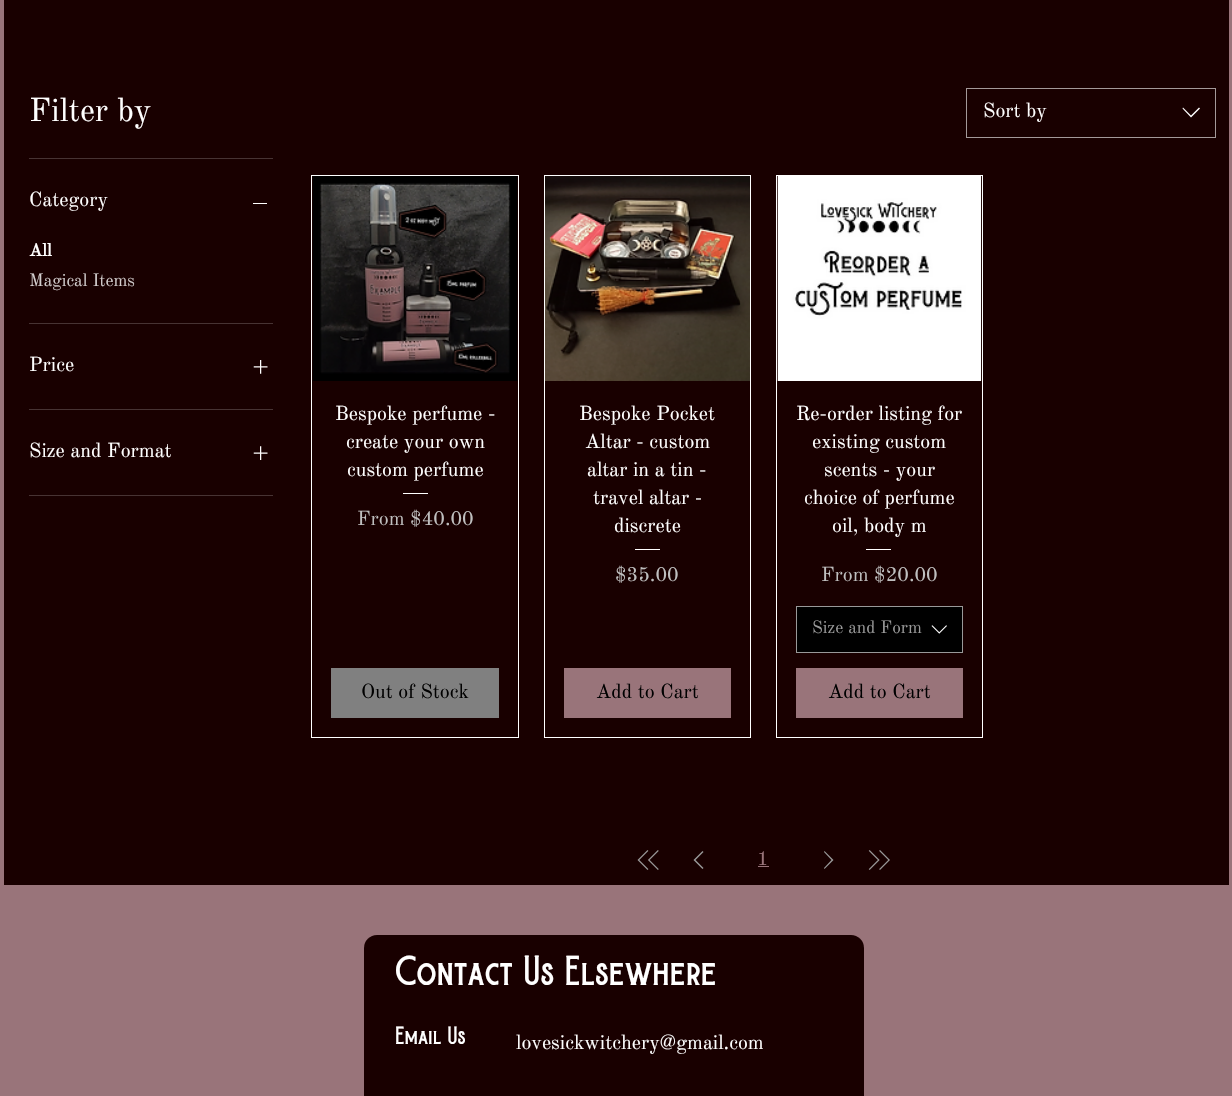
#include "include/core/SkBlurTypes.h"
#include "include/core/SkCanvas.h"
#include "include/core/SkData.h"
#include "include/core/SkFont.h"
#include "include/core/SkFontMgr.h"
#include "include/core/SkImage.h"
#include "include/core/SkMaskFilter.h"
#include "include/core/SkPaint.h"
#include "include/core/SkPathBuilder.h"
#include "include/core/SkTextBlob.h"
#include "include/effects/SkDashPathEffect.h"
#include "include/effects/SkGradientShader.h"
#include "include/utils/SkParsePath.h"

extern sk_sp<SkFontMgr> fontMgr;

void draw(SkCanvas* canvas) {
  SkPaint p;
  p.setAntiAlias(true);
  canvas->clear(SkColorSetRGB(153, 116, 122));
  p.setColor(SkColorSetRGB(25, 0, 0));
  canvas->drawRect(SkRect::MakeLTRB(4, 0, 1229, 885), p);
  p.setColor(SkColorSetRGB(71, 51, 51));
  canvas->drawRect(SkRect::MakeLTRB(29, 158, 273, 159), p);
  canvas->drawRect(SkRect::MakeLTRB(29, 323, 273, 324), p);
  p.setColor(SK_ColorWHITE);
  canvas->drawRect(SkRect::MakeLTRB(253, 203, 267, 204), p);
  p.setColor(SkColorSetRGB(71, 51, 51));
  canvas->drawRect(SkRect::MakeLTRB(29, 409, 273, 410), p);
  canvas->drawImageRect(SkImages::DeferredFromEncodedData(SkData::MakeFromFileName("images/1.png")), SkRect::MakeLTRB(253, 360, 268, 374), SkSamplingOptions());
  canvas->drawRect(SkRect::MakeLTRB(29, 495, 273, 496), p);
  canvas->drawImageRect(SkImages::DeferredFromEncodedData(SkData::MakeFromFileName("images/2.png")), SkRect::MakeLTRB(253, 446, 268, 460), SkSamplingOptions());
  p.setStyle(SkPaint::kStroke_Style);
  p.setStrokeWidth(1);
  p.setColor(SkColorSetRGB(163, 153, 153));
  canvas->drawRect(SkRect::MakeLTRB(966.5f, 88.5f, 1215.5f, 137.5f), p);
  p.setStyle(SkPaint::kFill_Style);
  p.setColor(SK_ColorWHITE);
  canvas->drawPath(SkPathBuilder(SkPathFillType::kEvenOdd).moveTo(1199, 107.5f).lineTo(1200, 108.5f).lineTo(1191, 117.5f).lineTo(1182.5f, 108.5f).lineTo(1183, 107.5f).lineTo(1191, 115.5f).close().detach(), p);
  p.setStyle(SkPaint::kStroke_Style);
  canvas->drawRect(SkRect::MakeLTRB(311.5f, 175.5f, 518.5f, 737.5f), p);
  canvas->drawImageRect(SkImages::DeferredFromEncodedData(SkData::MakeFromFileName("images/3.png")), SkRect::MakeLTRB(312, 176, 518, 381), SkSamplingOptions());
  p.setStyle(SkPaint::kFill_Style);
  canvas->drawRect(SkRect::MakeLTRB(403, 493, 428, 494), p);
  p.setColor(SkColorSetRGB(128, 128, 128));
  canvas->drawRect(SkRect::MakeLTRB(331, 668, 499, 718), p);
  p.setStyle(SkPaint::kStroke_Style);
  p.setColor(SK_ColorWHITE);
  canvas->drawRect(SkRect::MakeLTRB(544.5f, 175.5f, 750.5f, 737.5f), p);
  canvas->drawImageRect(SkImages::DeferredFromEncodedData(SkData::MakeFromFileName("images/4.png")), SkRect::MakeLTRB(545, 176, 750, 381), SkSamplingOptions());
  p.setStyle(SkPaint::kFill_Style);
  canvas->drawRect(SkRect::MakeLTRB(635, 549, 660, 550), p);
  p.setColor(SkColorSetRGB(153, 116, 122));
  canvas->drawRect(SkRect::MakeLTRB(564, 668, 731, 718), p);
  p.setStyle(SkPaint::kStroke_Style);
  p.setColor(SK_ColorWHITE);
  canvas->drawRect(SkRect::MakeLTRB(776.5f, 175.5f, 982.5f, 737.5f), p);
  canvas->drawImageRect(SkImages::DeferredFromEncodedData(SkData::MakeFromFileName("images/5.png")), SkRect::MakeLTRB(777, 176, 982, 381), SkSamplingOptions());
  p.setStyle(SkPaint::kFill_Style);
  canvas->drawRect(SkRect::MakeLTRB(866, 549, 891, 550), p);
  p.setColor(SK_ColorBLACK);
  canvas->drawRect(SkRect::MakeLTRB(796.5f, 606.5f, 962.5f, 652.5f), p);
  p.setStyle(SkPaint::kStroke_Style);
  p.setColor(SkColorSetRGB(153, 153, 153));
  canvas->drawRect(SkRect::MakeLTRB(796.5f, 606.5f, 962.5f, 652.5f), p);
  canvas->drawImageRect(SkImages::DeferredFromEncodedData(SkData::MakeFromFileName("images/6.png")), SkRect::MakeLTRB(931, 625, 947, 634), SkSamplingOptions());
  p.setStyle(SkPaint::kFill_Style);
  p.setColor(SkColorSetRGB(153, 116, 122));
  canvas->drawRect(SkRect::MakeLTRB(796, 668, 963, 718), p);
  canvas->drawImageRect(SkImages::DeferredFromEncodedData(SkData::MakeFromFileName("images/7.png")), SkRect::MakeLTRB(637, 850, 659, 870), SkSamplingOptions());
  p.setColor(SkColorSetRGB(153, 153, 153));
  canvas->drawPath(SkPathBuilder(SkPathFillType::kEvenOdd).moveTo(702.5f, 851).lineTo(703.5f, 852).lineTo(695.5f, 860).lineTo(703.5f, 868).lineTo(702.5f, 869).lineTo(693.5f, 860).close().detach(), p);
  p.setColor(SkColorSetRGB(153, 116, 122));
  canvas->drawRect(SkRect::MakeLTRB(758, 866, 769, 867), p);
  p.setColor(SkColorSetRGB(153, 153, 153));
  canvas->drawPath(SkPathBuilder(SkPathFillType::kEvenOdd).moveTo(824.5f, 851).lineTo(833.5f, 860).lineTo(824.5f, 869).lineTo(824, 868).lineTo(831.5f, 860).lineTo(824, 852).close().detach(), p);
  canvas->drawImageRect(SkImages::DeferredFromEncodedData(SkData::MakeFromFileName("images/8.png")), SkRect::MakeLTRB(868, 850, 890, 870), SkSamplingOptions());
  p.setColor(SkColorSetRGB(25, 0, 0));
  canvas->drawRoundRect(SkRect::MakeLTRB(364, 935, 864, 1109), 13, 13, p);
  SkFont font1(fontMgr->matchFamilyStyle("Old Standard TT", SkFontStyle::Normal()), 32.5f);
  font1.setSubpixel(true);
  p.setColor(SK_ColorWHITE);
  canvas->drawString("Filter by", 29, 121, font1, p);
  SkFont font2(fontMgr->matchFamilyStyle("Old Standard TT", SkFontStyle::Normal()), 20);
  font2.setSubpixel(true);
  canvas->drawString("Category", 29, 206, font2, p);
  SkFont font3(fontMgr->matchFamilyStyle("Old Standard TT", SkFontStyle::Bold()), 17.5f);
  font3.setSubpixel(true);
  canvas->drawString("All", 29, 256, font3, p);
  SkFont font4(fontMgr->matchFamilyStyle("Old Standard TT", SkFontStyle::Normal()), 17.5f);
  font4.setSubpixel(true);
  p.setColor(SkColorSetRGB(209, 204, 204));
  canvas->drawString("Magical Items", 29, 286, font4, p);
  p.setColor(SK_ColorWHITE);
  canvas->drawString("Price", 29, 371, font2, p);
  canvas->drawString("Size and Format", 29, 457, font2, p);
  canvas->drawString("Sort by", 983, 117, font2, p);
  canvas->drawString("Bespoke perfume -", 335, 420, font2, p);
  canvas->drawString("create your own", 346, 448, font2, p);
  canvas->drawString("custom perfume", 347, 476, font2, p);
  p.setColor(SkColorSetRGB(191, 191, 191));
  canvas->drawString("From $40.00", 357, 525, font2, p);
  p.setColor(SK_ColorBLACK);
  canvas->drawString("Out of Stock", 361, 698, font2, p);
  p.setColor(SK_ColorWHITE);
  canvas->drawString("Bespoke Pocket", 579, 420, font2, p);
  canvas->drawString("Altar - custom", 585, 448, font2, p);
  canvas->drawString("altar in a tin -", 587, 476, font2, p);
  canvas->drawString("travel altar -", 593, 504, font2, p);
  canvas->drawString("discrete", 614, 532, font2, p);
  p.setColor(SkColorSetRGB(191, 191, 191));
  canvas->drawString("$35.00", 615, 581, font2, p);
  p.setColor(SK_ColorBLACK);
  canvas->drawString("Add to Cart", 596, 698, font2, p);
  p.setColor(SK_ColorWHITE);
  canvas->drawString("Re-order listing for", 796, 420, font2, p);
  canvas->drawString("existing custom", 812, 448, font2, p);
  canvas->drawString("scents - your", 824, 476, font2, p);
  canvas->drawString("choice of perfume", 804, 504, font2, p);
  canvas->drawString("oil, body m", 832, 532, font2, p);
  p.setColor(SkColorSetRGB(191, 191, 191));
  canvas->drawString("From $20.00", 821, 581, font2, p);
  p.setColor(SkColorSetRGB(153, 153, 153));
  canvas->drawString("Size and Form", 812, 633, font4, p);
  p.setColor(SK_ColorBLACK);
  canvas->drawString("Add to Cart", 828, 698, font2, p);
  p.setColor(SkColorSetRGB(153, 116, 122));
  canvas->drawString("1", 757, 865, font2, p);
  SkFont font5(fontMgr->matchFamilyStyle("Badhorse", SkFontStyle::Normal()), 33.75f);
  font5.setSubpixel(true);
  p.setColor(SK_ColorWHITE);
  canvas->drawString("Contact Us Elsewhere", 395, 985, font5, p);
  SkFont font6(fontMgr->matchFamilyStyle("Badhorse", SkFontStyle::Normal()), 20);
  font6.setSubpixel(true);
  canvas->drawString("Email Us", 395, 1044, font6, p);
  canvas->drawString("lovesickwitchery@gmail.com", 516, 1049, font2, p);
}
